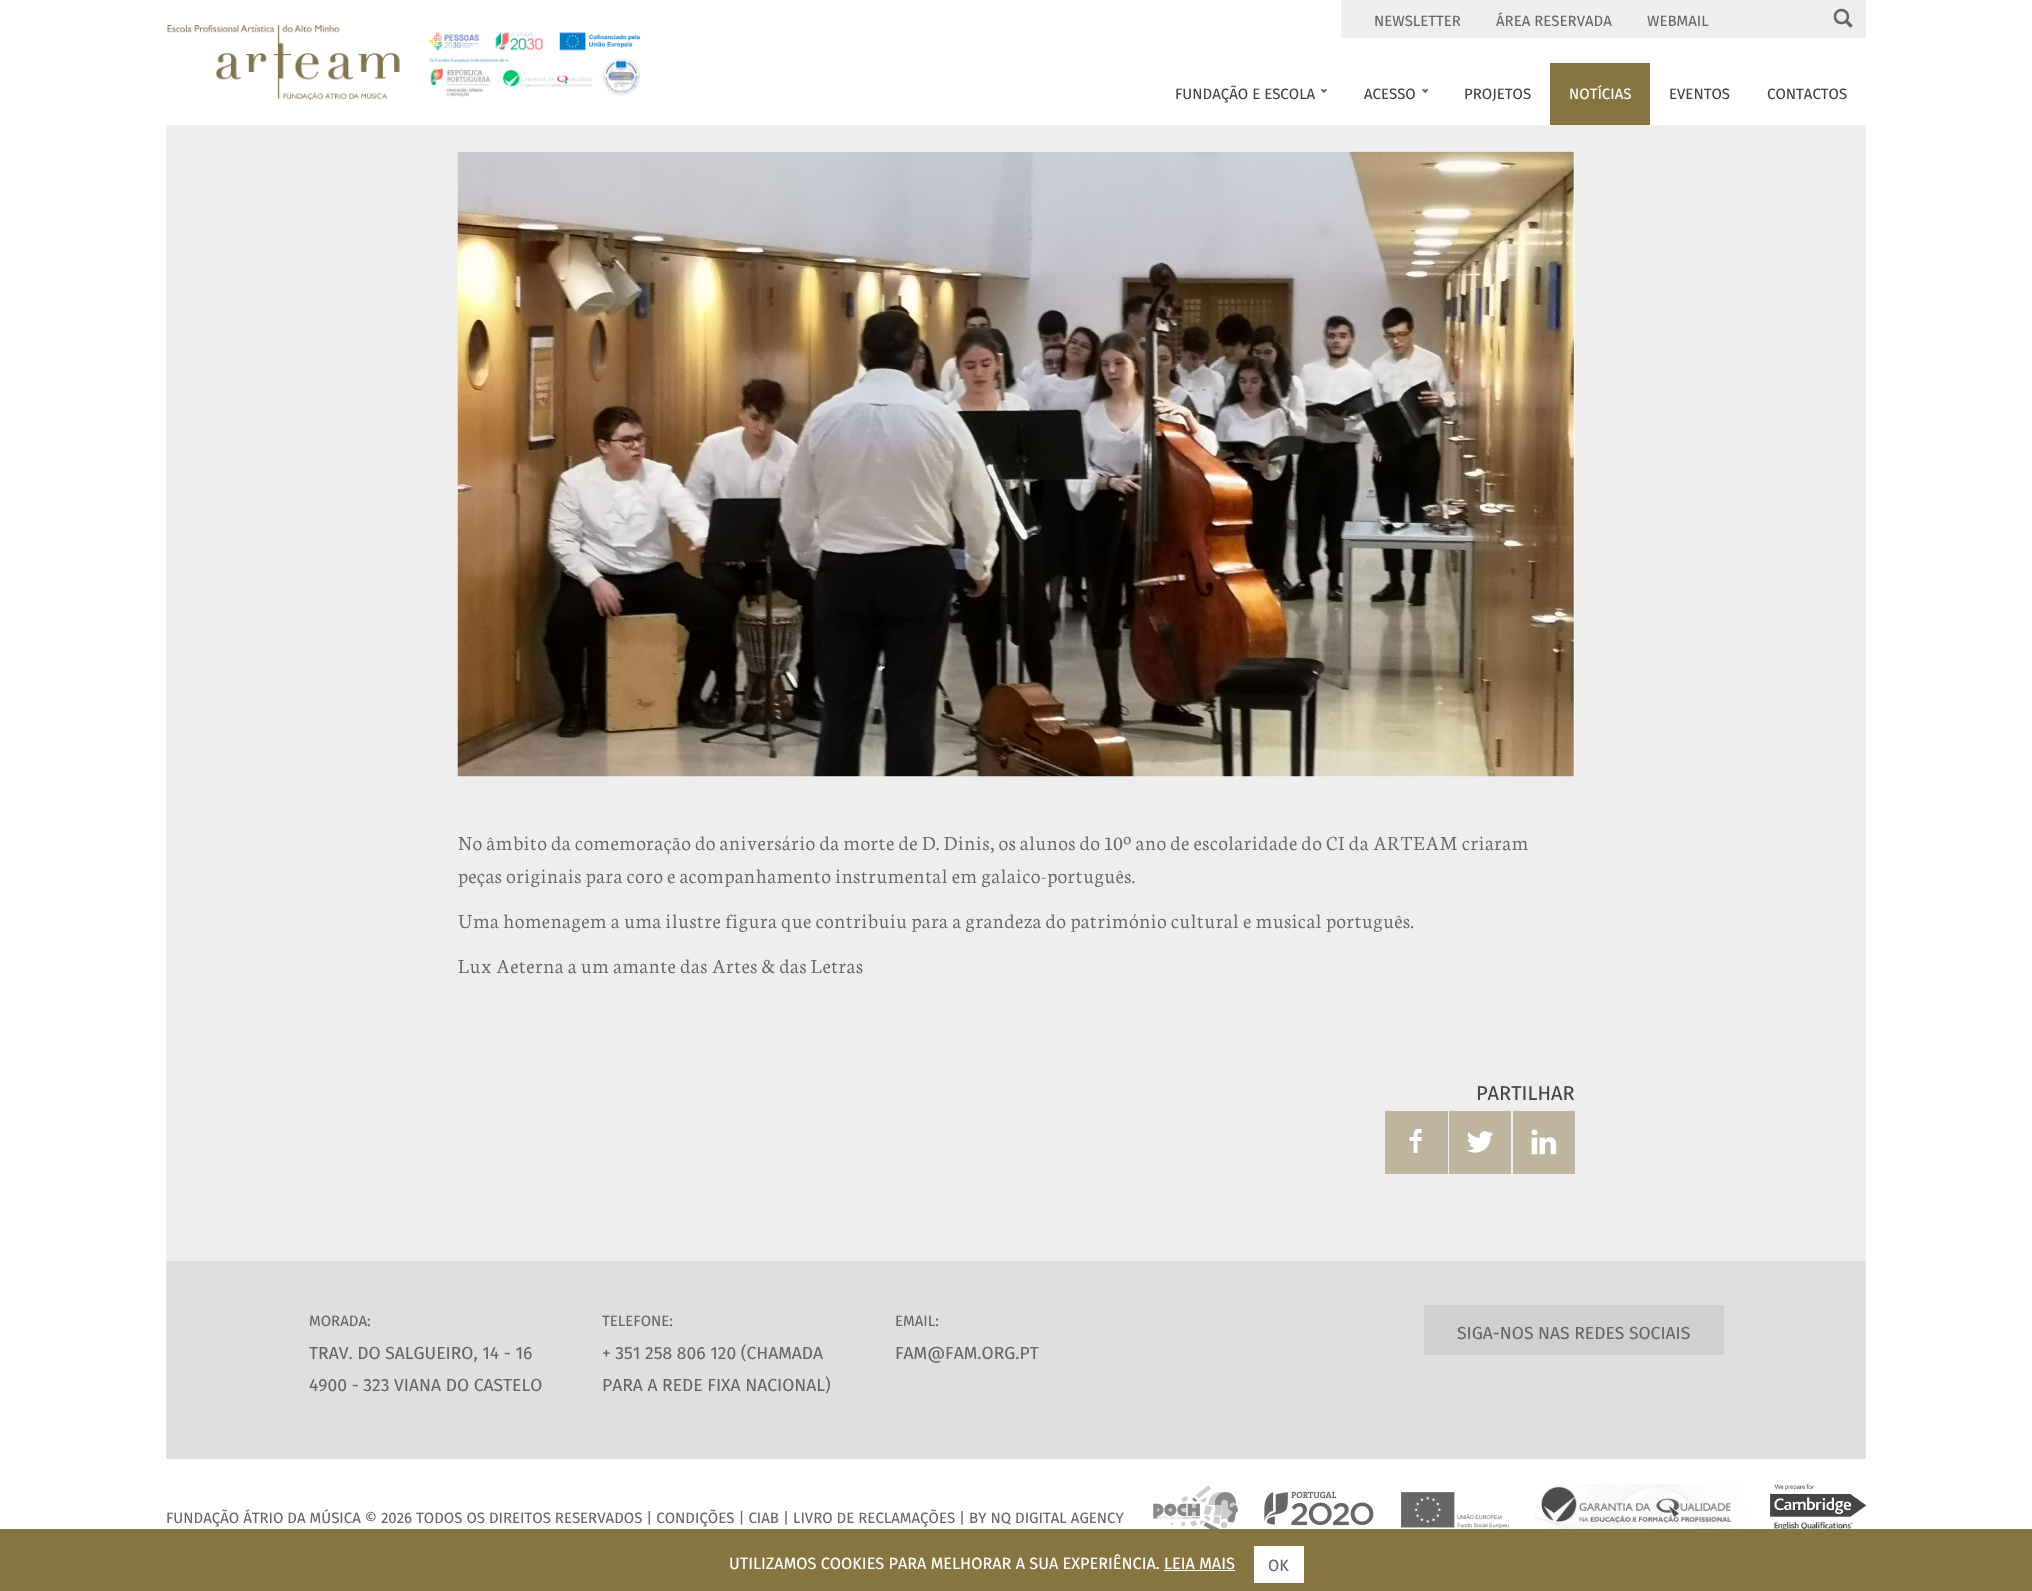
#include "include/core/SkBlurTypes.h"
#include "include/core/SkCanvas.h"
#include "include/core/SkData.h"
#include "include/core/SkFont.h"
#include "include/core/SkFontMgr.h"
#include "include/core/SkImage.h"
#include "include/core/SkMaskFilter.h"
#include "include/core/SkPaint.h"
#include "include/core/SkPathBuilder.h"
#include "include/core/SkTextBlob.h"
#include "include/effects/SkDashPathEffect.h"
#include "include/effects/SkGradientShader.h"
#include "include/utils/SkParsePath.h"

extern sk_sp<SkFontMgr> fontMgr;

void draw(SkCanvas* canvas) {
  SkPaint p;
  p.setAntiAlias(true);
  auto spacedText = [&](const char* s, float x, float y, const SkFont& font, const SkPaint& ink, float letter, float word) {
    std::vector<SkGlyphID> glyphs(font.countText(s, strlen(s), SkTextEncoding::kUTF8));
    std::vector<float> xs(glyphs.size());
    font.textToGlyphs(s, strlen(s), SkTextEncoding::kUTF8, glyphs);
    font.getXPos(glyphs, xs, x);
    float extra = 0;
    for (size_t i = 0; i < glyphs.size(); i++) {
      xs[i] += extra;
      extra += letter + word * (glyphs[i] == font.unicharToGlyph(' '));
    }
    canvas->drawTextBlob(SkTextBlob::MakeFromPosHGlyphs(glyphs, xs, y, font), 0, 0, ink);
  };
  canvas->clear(SK_ColorWHITE);
  p.setColor(SkColorSetRGB(238, 238, 238));
  canvas->drawRect(SkRect::MakeLTRB(1341, 0, 1866, 38), p);
  canvas->drawImageRect(SkImages::DeferredFromEncodedData(SkData::MakeFromFileName("images/1.png")), SkRect::MakeLTRB(1833, 8, 1853, 28), SkSamplingOptions());
  canvas->drawImageRect(SkImages::DeferredFromEncodedData(SkData::MakeFromFileName("images/2.png")), SkRect::MakeLTRB(167, 25, 640, 100), SkSamplingOptions());
  canvas->drawImageRect(SkImages::DeferredFromEncodedData(SkData::MakeFromFileName("images/3.png")), SkRect::MakeLTRB(1320, 89, 1327, 93), SkSamplingOptions());
  canvas->drawImageRect(SkImages::DeferredFromEncodedData(SkData::MakeFromFileName("images/4.png")), SkRect::MakeLTRB(1422, 89, 1429, 93), SkSamplingOptions());
  p.setColor(SkColorSetRGB(134, 117, 64));
  canvas->drawRect(SkRect::MakeLTRB(1550, 63, 1650, 125), p);
  p.setColor(SkColorSetRGB(238, 238, 238));
  canvas->drawRect(SkRect::MakeLTRB(166, 125, 1866, 1261), p);
  p.setColor(SkColorSetRGB(248, 248, 248));
  canvas->drawRect(SkRect::MakeLTRB(458, 151, 1575, 776), p);
  canvas->drawImageRect(SkImages::DeferredFromEncodedData(SkData::MakeFromFileName("images/5.png")), SkRect::MakeLTRB(457, 151, 1574, 777), SkSamplingOptions());
  p.setColor(SkColorSetRGB(191, 181, 159));
  canvas->drawRect(SkRect::MakeLTRB(1385, 1111, 1448, 1174), p);
  canvas->drawImageRect(SkImages::DeferredFromEncodedData(SkData::MakeFromFileName("images/6.png")), SkRect::MakeLTRB(1409, 1129, 1422, 1153), SkSamplingOptions());
  canvas->drawRect(SkRect::MakeLTRB(1449, 1111, 1511, 1174), p);
  canvas->drawImageRect(SkImages::DeferredFromEncodedData(SkData::MakeFromFileName("images/7.png")), SkRect::MakeLTRB(1467, 1131, 1494, 1153), SkSamplingOptions());
  canvas->drawRect(SkRect::MakeLTRB(1513, 1111, 1575, 1174), p);
  canvas->drawImageRect(SkImages::DeferredFromEncodedData(SkData::MakeFromFileName("images/8.png")), SkRect::MakeLTRB(1531, 1129, 1557, 1155), SkSamplingOptions());
  p.setColor(SkColorSetRGB(223, 223, 223));
  canvas->drawRect(SkRect::MakeLTRB(166, 1261, 1866, 1459), p);
  p.setColor(SkColorSetRGB(208, 208, 208));
  canvas->drawRect(SkRect::MakeLTRB(1424, 1305, 1724, 1355), p);
  canvas->drawImageRect(SkImages::DeferredFromEncodedData(SkData::MakeFromFileName("images/9.png")), SkRect::MakeLTRB(1153, 1485, 1238, 1529), SkSamplingOptions());
  canvas->drawImageRect(SkImages::DeferredFromEncodedData(SkData::MakeFromFileName("images/10.png")), SkRect::MakeLTRB(1264, 1491, 1374, 1526), SkSamplingOptions());
  canvas->drawImageRect(SkImages::DeferredFromEncodedData(SkData::MakeFromFileName("images/11.png")), SkRect::MakeLTRB(1401, 1492, 1509, 1529), SkSamplingOptions());
  canvas->drawImageRect(SkImages::DeferredFromEncodedData(SkData::MakeFromFileName("images/12.png")), SkRect::MakeLTRB(1534, 1484, 1745, 1529), SkSamplingOptions());
  canvas->drawImageRect(SkImages::DeferredFromEncodedData(SkData::MakeFromFileName("images/13.png")), SkRect::MakeLTRB(1770, 1484, 1867, 1529), SkSamplingOptions());
  p.setColor(SkColorSetRGB(134, 117, 64));
  canvas->drawRect(SkRect::MakeLTRB(0, 1529, 2032, 1591), p);
  p.setColor(SK_ColorWHITE);
  canvas->drawRect(SkRect::MakeLTRB(1254, 1546, 1304, 1583), p);
  canvas->drawRect(SkRect::MakeLTRB(1164, 1570, 1235, 1571), p);
  SkFont font1(fontMgr->matchFamilyStyle("Fira Sans", SkFontStyle::Normal()), 15);
  font1.setSubpixel(true);
  p.setColor(SkColorSetRGB(102, 102, 102));
  canvas->drawString("NEWSLETTER", 1374, 26, font1, p);
  canvas->drawString("ÁREA RESERVADA", 1496, 26, font1, p);
  canvas->drawString("WEBMAIL", 1647, 26, font1, p);
  p.setColor(SkColorSetRGB(68, 68, 68));
  canvas->drawString("FUNDAÇÃO E ESCOLA", 1175, 99, font1, p);
  canvas->drawString("ACESSO", 1364, 99, font1, p);
  canvas->drawString("PROJETOS", 1464, 99, font1, p);
  p.setColor(SK_ColorWHITE);
  canvas->drawString("NOTÍCIAS", 1569, 99, font1, p);
  p.setColor(SkColorSetRGB(68, 68, 68));
  canvas->drawString("EVENTOS", 1669, 99, font1, p);
  canvas->drawString("CONTACTOS", 1767, 99, font1, p);
  SkFont font2(fontMgr->matchFamilyStyle("Neuton", SkFontStyle(300, SkFontStyle::kNormal_Width, SkFontStyle::kUpright_Slant)), 21.25f);
  font2.setSubpixel(true);
  p.setColor(SkColorSetRGB(102, 102, 102));
  spacedText("No âmbito da comemoração do aniversário da morte de D. Dinis, os alunos do 10º ano de escolaridade do CI da ARTEAM criaram", 458, 850, font2, p, 0.62f, 0);
  spacedText("peças originais para coro e acompanhamento instrumental em galaico-português.", 458, 883, font2, p, 0.62f, 0);
  spacedText("Uma homenagem a uma ilustre figura que contribuiu para a grandeza do património cultural e musical português.", 458, 928, font2, p, 0.62f, 0);
  spacedText("Lux Aeterna a um amante das Artes & das Letras", 458, 973, font2, p, 0.62f, 0);
  SkFont font3(fontMgr->matchFamilyStyle("Fira Sans", SkFontStyle::Normal()), 20);
  font3.setSubpixel(true);
  p.setColor(SkColorSetRGB(68, 68, 68));
  canvas->drawString("PARTILHAR", 1476, 1100, font3, p);
  p.setColor(SkColorSetRGB(102, 102, 102));
  canvas->drawString("MORADA:", 309, 1326, font1, p);
  SkFont font4(fontMgr->matchFamilyStyle("Fira Sans", SkFontStyle::Normal()), 17.5f);
  font4.setSubpixel(true);
  canvas->drawString("TRAV. DO SALGUEIRO, 14 - 16", 309, 1359, font4, p);
  canvas->drawString("4900 - 323 VIANA DO CASTELO", 309, 1391, font4, p);
  canvas->drawString("TELEFONE:", 602, 1326, font1, p);
  canvas->drawString("+ 351 258 806 120 (CHAMADA", 602, 1359, font4, p);
  canvas->drawString("PARA A REDE FIXA NACIONAL)", 602, 1391, font4, p);
  canvas->drawString("EMAIL:", 895, 1326, font1, p);
  canvas->drawString("FAM@FAM.ORG.PT", 895, 1359, font4, p);
  canvas->drawString("SIGA-NOS NAS REDES SOCIAIS", 1457, 1339, font4, p);
  canvas->drawString("FUNDAÇÃO ÁTRIO DA MÚSICA © 2026 TODOS OS DIREITOS RESERVADOS | CONDIÇÕES | CIAB | LIVRO DE RECLAMAÇÕES | BY NQ DIGITAL AGENCY", 166, 1523, font1, p);
  SkFont font5(fontMgr->matchFamilyStyle("Fira Sans", SkFontStyle::Normal()), 16.25f);
  font5.setSubpixel(true);
  p.setColor(SK_ColorWHITE);
  canvas->drawString("UTILIZAMOS COOKIES PARA MELHORAR A SUA EXPERIÊNCIA. LEIA MAIS", 729, 1569, font5, p);
  p.setColor(SkColorSetRGB(102, 102, 102));
  canvas->drawString("OK", 1268, 1571, font5, p);
}
